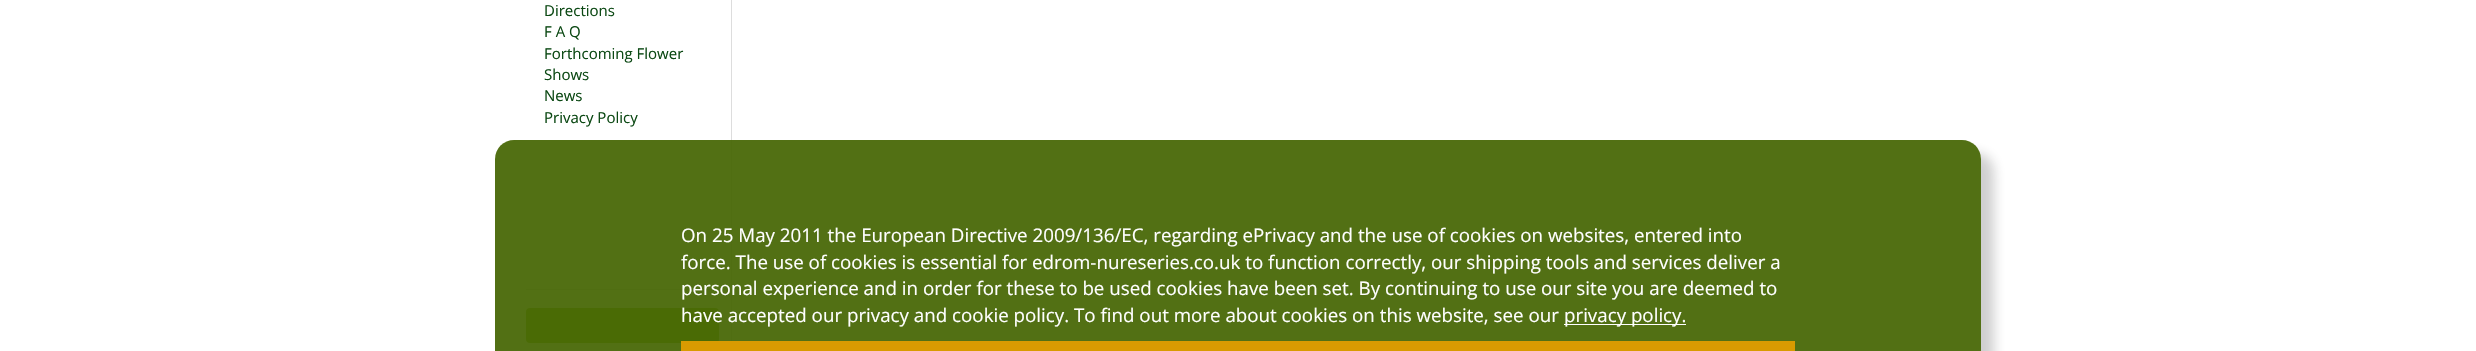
#include "include/core/SkBlurTypes.h"
#include "include/core/SkCanvas.h"
#include "include/core/SkData.h"
#include "include/core/SkFont.h"
#include "include/core/SkFontMgr.h"
#include "include/core/SkImage.h"
#include "include/core/SkMaskFilter.h"
#include "include/core/SkPaint.h"
#include "include/core/SkPathBuilder.h"
#include "include/core/SkTextBlob.h"
#include "include/effects/SkDashPathEffect.h"
#include "include/effects/SkGradientShader.h"
#include "include/utils/SkParsePath.h"

extern sk_sp<SkFontMgr> fontMgr;

void draw(SkCanvas* canvas) {
  SkPaint p;
  p.setAntiAlias(true);
  canvas->clear(SK_ColorWHITE);
  p.setColor(SkColorSetRGB(221, 221, 221));
  canvas->drawRect(SkRect::MakeLTRB(731, 0, 732, 341), p);
  canvas->drawRect(SkRect::MakeLTRB(526, 289, 719, 290), p);
  p.setColor(SkColorSetRGB(142, 189, 57));
  canvas->drawRoundRect(SkRect::MakeLTRB(526, 308, 719, 343), 4, 4, p);
  canvas->save();
  canvas->clipPath(SkPathBuilder(SkPathFillType::kEvenOdd).moveTo(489, 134).lineTo(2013, 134).lineTo(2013, 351).lineTo(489, 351).close().moveTo(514, 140).lineTo(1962, 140).cubicTo(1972.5f, 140, 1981, 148.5f, 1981, 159).lineTo(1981, 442).cubicTo(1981, 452.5f, 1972.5f, 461, 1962, 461).lineTo(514, 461).cubicTo(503.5f, 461, 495, 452.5f, 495, 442).lineTo(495, 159).cubicTo(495, 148.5f, 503.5f, 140, 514, 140).close().detach(), true);
  p.setColor(SkColorSetARGB(56, 38, 38, 38));
  p.setMaskFilter(SkMaskFilter::MakeBlur(kNormal_SkBlurStyle, 6));
  canvas->drawRoundRect(SkRect::MakeLTRB(508, 153, 1994, 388), 19, 19, p);
  p.setMaskFilter(nullptr);
  canvas->restore();
  p.setColor(SkColorSetARGB(235, 67, 100, 0));
  canvas->drawRoundRect(SkRect::MakeLTRB(495, 140, 1981, 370), 19, 19, p);
  p.setColor(SK_ColorWHITE);
  canvas->drawRect(SkRect::MakeLTRB(1564, 324, 1686, 325), p);
  p.setColor(SkColorSetRGB(217, 155, 1));
  canvas->drawRect(SkRect::MakeLTRB(681, 341, 1795, 351), p);
  SkFont font1(fontMgr->matchFamilyStyle("Open Sans", SkFontStyle::Normal()), 15);
  font1.setSubpixel(true);
  p.setColor(SkColorSetRGB(12, 73, 20));
  canvas->drawString("Directions", 544, 16, font1, p);
  canvas->drawString("F A Q", 544, 37, font1, p);
  canvas->drawString("Forthcoming Flower", 544, 59, font1, p);
  canvas->drawString("Shows", 544, 80, font1, p);
  canvas->drawString("News", 544, 101, font1, p);
  canvas->drawString("Privacy Policy", 544, 123, font1, p);
  SkFont font2(fontMgr->matchFamilyStyle("Open Sans", SkFontStyle::Normal()), 18.75f);
  font2.setSubpixel(true);
  p.setColor(SK_ColorWHITE);
  canvas->drawString("On 25 May 2011 the European Directive 2009/136/EC, regarding ePrivacy and the use of cookies on websites, entered into", 681, 242, font2, p);
  canvas->drawString("force. The use of cookies is essential for edrom-nureseries.co.uk to function correctly, our shipping tools and services deliver a", 681, 269, font2, p);
  canvas->drawString("personal experience and in order for these to be used cookies have been set. By continuing to use our site you are deemed to", 681, 295, font2, p);
  canvas->drawString("have accepted our privacy and cookie policy. To find out more about cookies on this website, see our", 681, 322, font2, p);
  canvas->drawString("privacy policy.", 1564, 322, font2, p);
}
